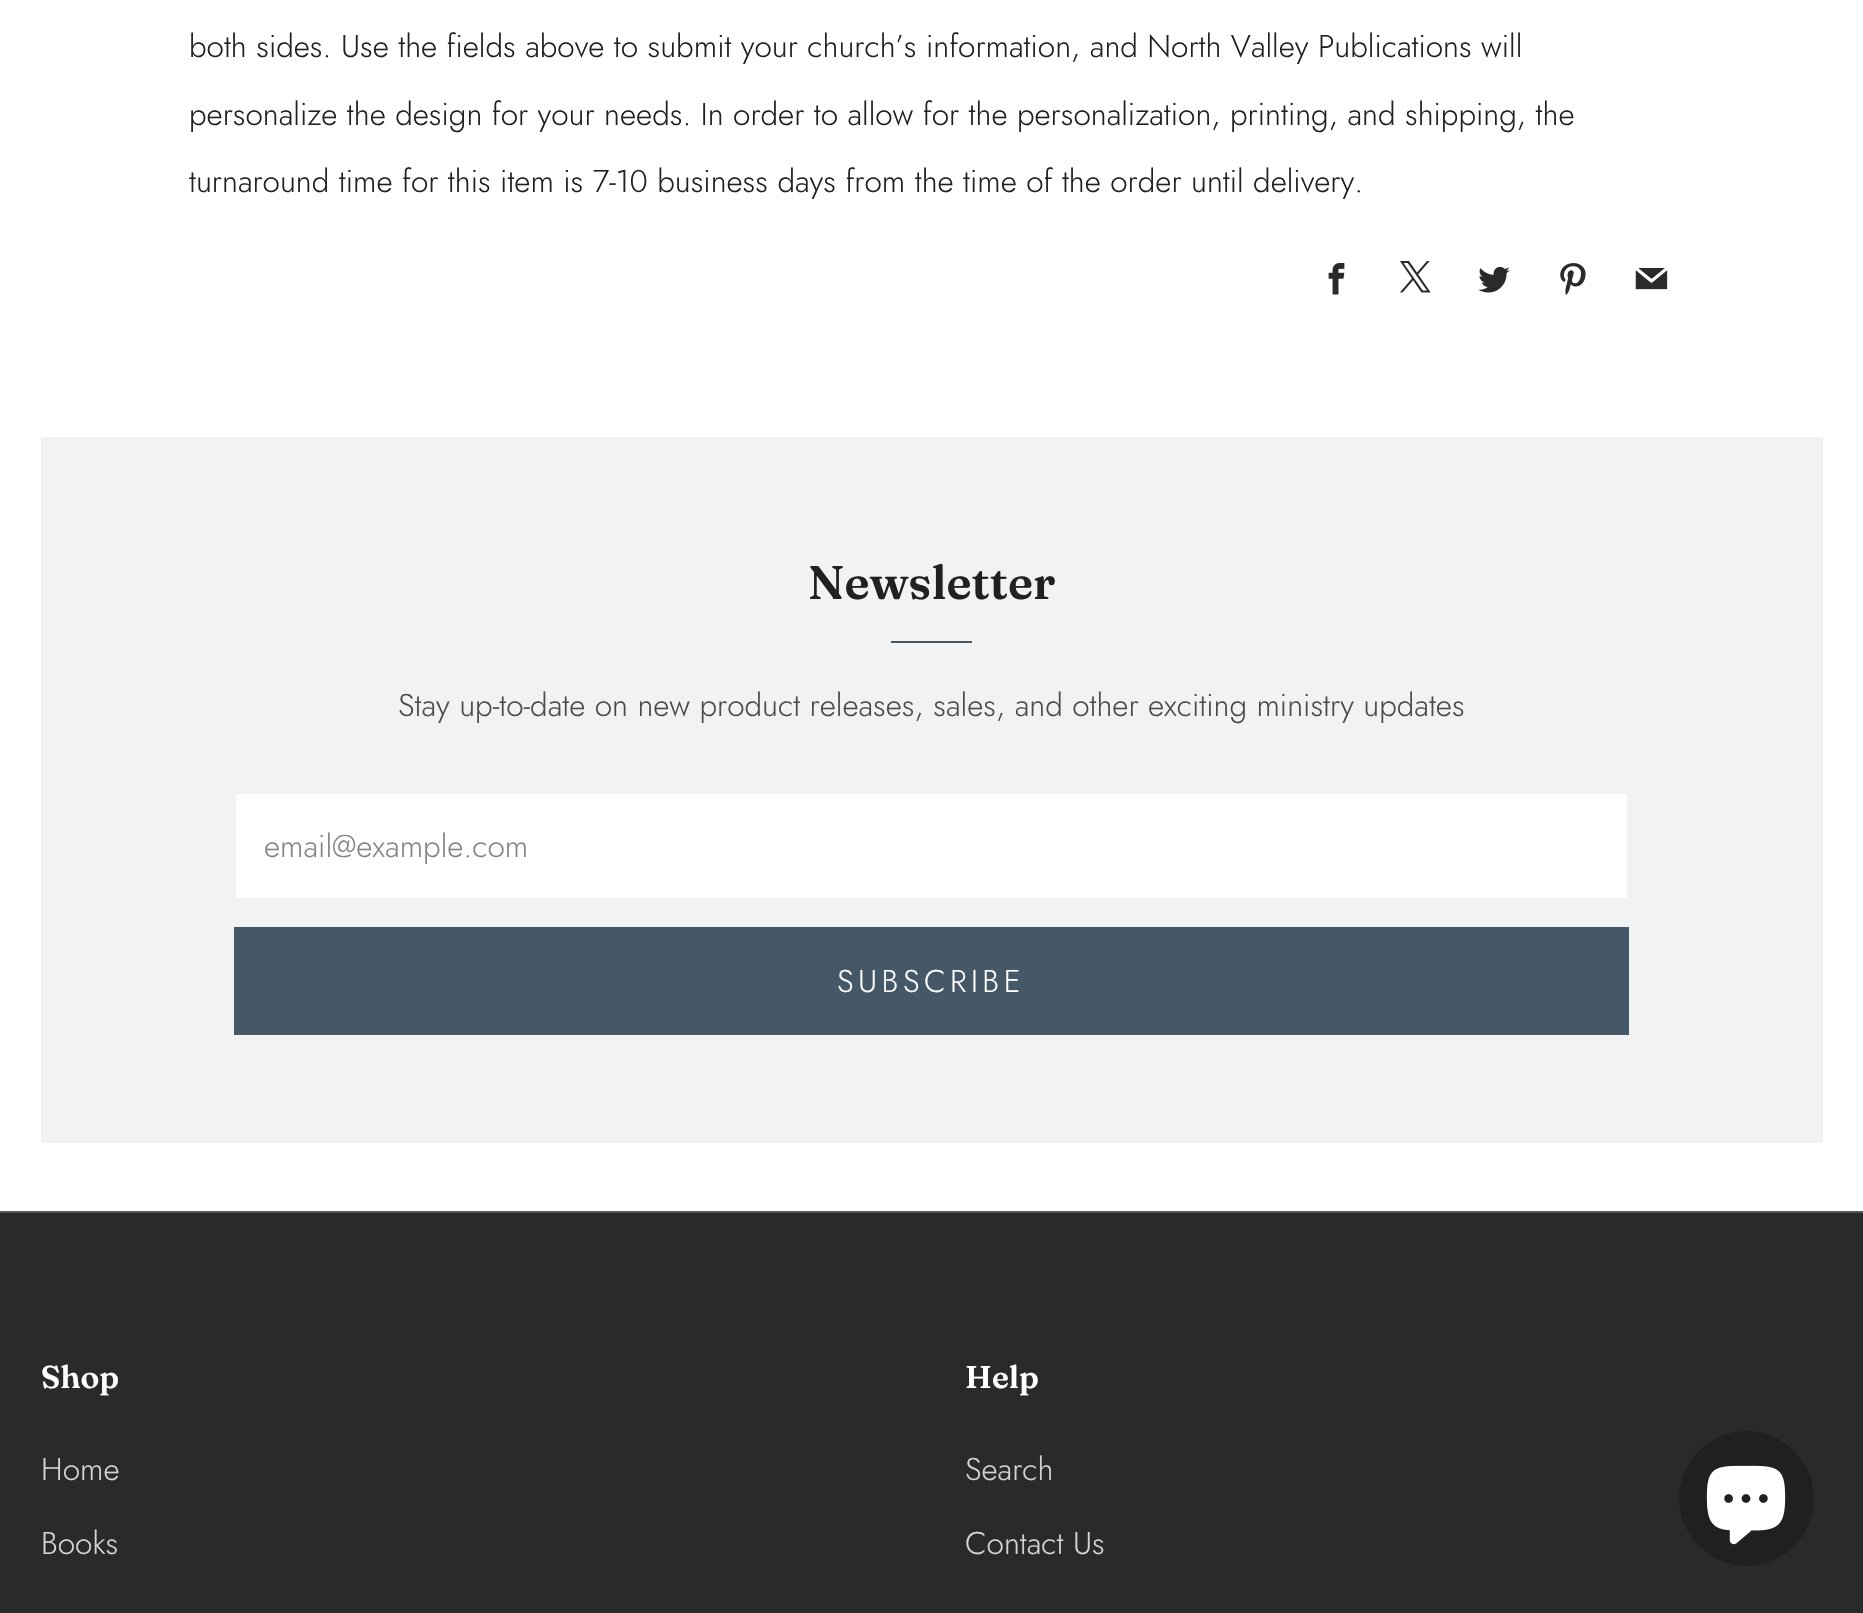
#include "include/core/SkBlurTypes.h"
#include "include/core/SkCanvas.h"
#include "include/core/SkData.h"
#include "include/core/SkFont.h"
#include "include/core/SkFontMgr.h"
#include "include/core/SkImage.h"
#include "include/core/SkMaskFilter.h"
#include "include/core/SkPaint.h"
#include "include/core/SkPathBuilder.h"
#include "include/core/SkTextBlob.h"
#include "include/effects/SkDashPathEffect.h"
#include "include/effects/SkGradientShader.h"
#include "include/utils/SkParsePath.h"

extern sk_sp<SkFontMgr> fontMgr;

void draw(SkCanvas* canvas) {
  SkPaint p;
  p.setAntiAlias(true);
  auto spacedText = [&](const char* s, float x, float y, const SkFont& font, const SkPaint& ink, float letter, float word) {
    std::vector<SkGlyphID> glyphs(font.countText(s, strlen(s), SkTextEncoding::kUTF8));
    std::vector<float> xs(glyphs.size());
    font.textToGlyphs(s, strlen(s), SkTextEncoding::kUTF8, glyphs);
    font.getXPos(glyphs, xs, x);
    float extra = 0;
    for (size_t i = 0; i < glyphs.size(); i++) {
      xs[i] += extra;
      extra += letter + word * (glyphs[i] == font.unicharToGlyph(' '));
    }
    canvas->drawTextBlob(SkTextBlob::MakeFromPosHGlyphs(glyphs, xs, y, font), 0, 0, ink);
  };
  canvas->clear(SK_ColorWHITE);
  canvas->drawImageRect(SkImages::DeferredFromEncodedData(SkData::MakeFromFileName("images/1.png")), SkRect::MakeLTRB(1328, 263, 1345, 295), SkSamplingOptions());
  canvas->drawImageRect(SkImages::DeferredFromEncodedData(SkData::MakeFromFileName("images/2.png")), SkRect::MakeLTRB(1400, 261, 1431, 293), SkSamplingOptions());
  canvas->drawImageRect(SkImages::DeferredFromEncodedData(SkData::MakeFromFileName("images/3.png")), SkRect::MakeLTRB(1478, 266, 1510, 293), SkSamplingOptions());
  canvas->drawImageRect(SkImages::DeferredFromEncodedData(SkData::MakeFromFileName("images/4.png")), SkRect::MakeLTRB(1560, 263, 1586, 295), SkSamplingOptions());
  canvas->drawImageRect(SkImages::DeferredFromEncodedData(SkData::MakeFromFileName("images/5.png")), SkRect::MakeLTRB(1635, 268, 1668, 290), SkSamplingOptions());
  p.setColor(SkColorSetRGB(242, 242, 242));
  canvas->drawRect(SkRect::MakeLTRB(41, 437, 1823, 1143), p);
  p.setColor(SkColorSetRGB(69, 88, 104));
  canvas->drawRect(SkRect::MakeLTRB(891, 641, 972, 643), p);
  p.setColor(SK_ColorWHITE);
  canvas->drawRect(SkRect::MakeLTRB(236, 794, 1627, 898), p);
  p.setColor(SkColorSetRGB(69, 88, 104));
  canvas->drawRect(SkRect::MakeLTRB(234, 927, 1629, 1035), p);
  p.setColor(SkColorSetRGB(42, 42, 42));
  canvas->drawRect(SkRect::MakeLTRB(0, 1213, 1863, 1613), p);
  p.setColor(SkColorSetRGB(85, 85, 85));
  canvas->drawRect(SkRect::MakeLTRB(0, 1211, 1863, 1213), p);
  p.setColor(SkColorSetRGB(32, 32, 32));
  canvas->drawCircle(1746.5f, 1498.5f, 67.5f, p);
  canvas->drawImageRect(SkImages::DeferredFromEncodedData(SkData::MakeFromFileName("images/6.png")), SkRect::MakeLTRB(1706, 1465, 1786, 1545), SkSamplingOptions());
  SkFont font1(fontMgr->matchFamilyStyle("Jost", SkFontStyle(300, SkFontStyle::kNormal_Width, SkFontStyle::kUpright_Slant)), 31.5f);
  font1.setSubpixel(true);
  p.setColor(SkColorSetRGB(33, 33, 33));
  canvas->drawString("both sides. Use the fields above to submit your church’s information, and North Valley Publications will", 189, 57, font1, p);
  canvas->drawString("personalize the design for your needs. In order to allow for the personalization, printing, and shipping, the", 189, 125, font1, p);
  canvas->drawString("turnaround time for this item is 7-10 business days from the time of the order until delivery.", 189, 192, font1, p);
  SkFont font2(fontMgr->matchFamilyStyle("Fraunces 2", SkFontStyle(600, SkFontStyle::kNormal_Width, SkFontStyle::kUpright_Slant)), 47.25f);
  font2.setSubpixel(true);
  canvas->drawString("Newsletter", 808, 599, font2, p);
  p.setColor(SkColorSetRGB(75, 75, 75));
  canvas->drawString("Stay up-to-date on new product releases, sales, and other exciting ministry updates", 398, 716, font1, p);
  p.setColor(SkColorSetRGB(133, 133, 133));
  canvas->drawString("email@example.com", 264, 857, font1, p);
  p.setColor(SK_ColorWHITE);
  spacedText("SUBSCRIBE", 837, 992, font1, p, 4.5f, 0);
  SkFont font3(fontMgr->matchFamilyStyle("Fraunces", SkFontStyle(600, SkFontStyle::kNormal_Width, SkFontStyle::kUpright_Slant)), 31.5f);
  font3.setSubpixel(true);
  canvas->drawString("Shop", 41, 1388, font3, p);
  p.setColor(SkColorSetRGB(212, 212, 212));
  canvas->drawString("Home", 41, 1480, font1, p);
  canvas->drawString("Books", 41, 1554, font1, p);
  p.setColor(SK_ColorWHITE);
  canvas->drawString("Help", 965, 1388, font3, p);
  p.setColor(SkColorSetRGB(212, 212, 212));
  canvas->drawString("Search", 965, 1480, font1, p);
  canvas->drawString("Contact Us", 965, 1554, font1, p);
}
